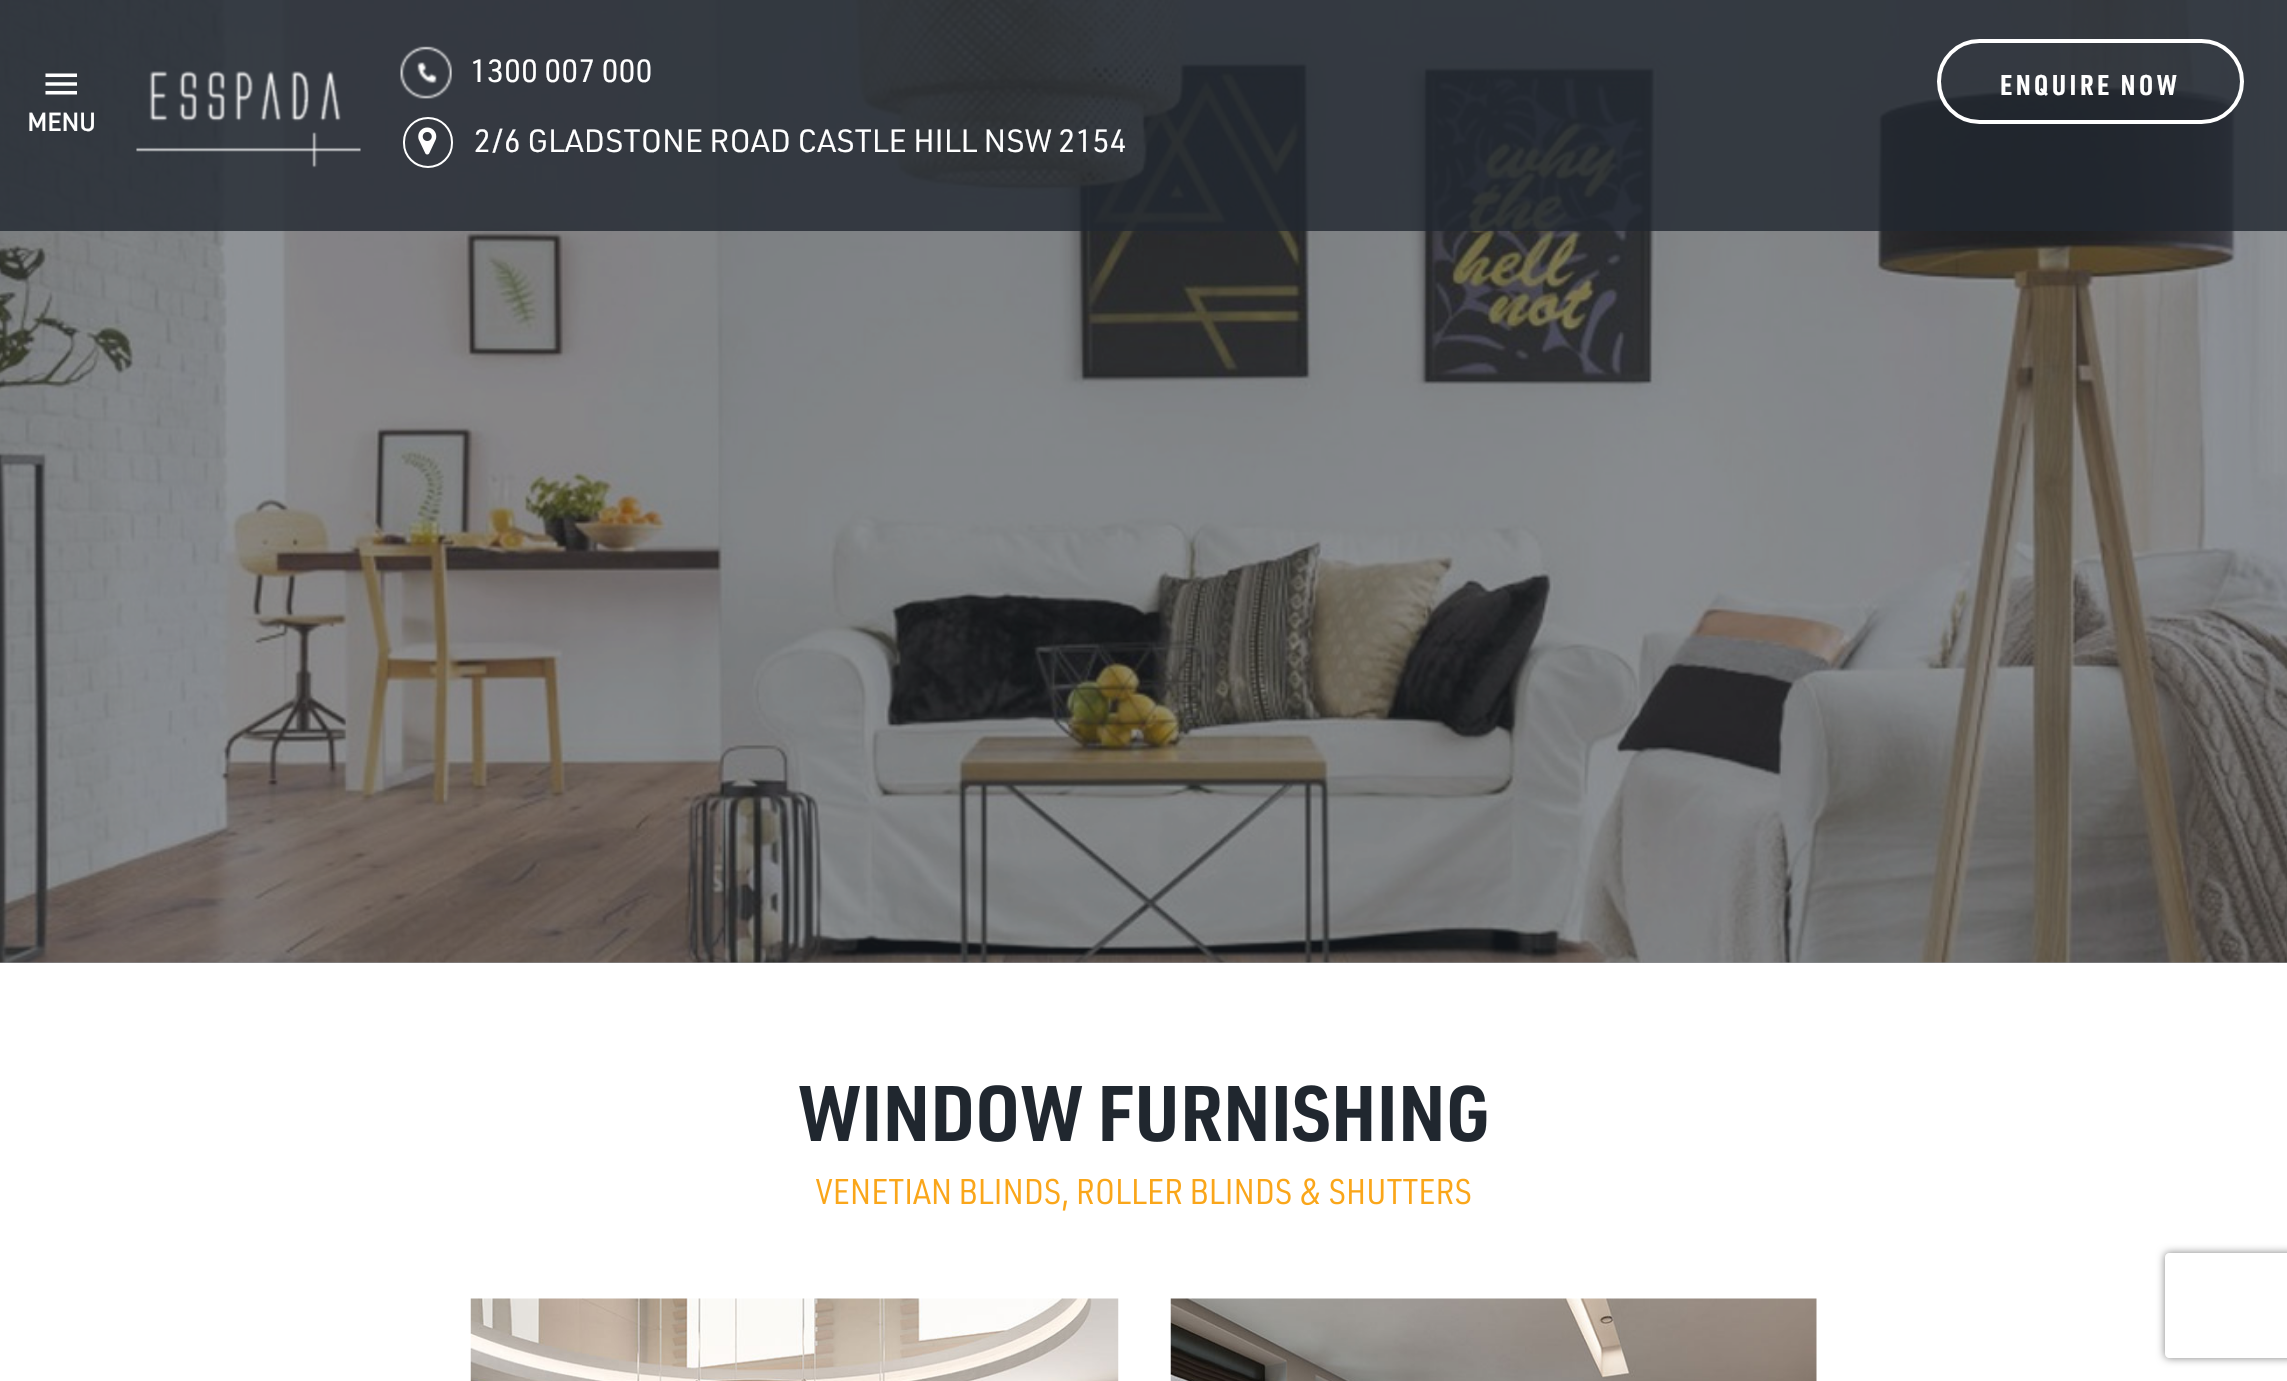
#include "include/core/SkBlurTypes.h"
#include "include/core/SkCanvas.h"
#include "include/core/SkData.h"
#include "include/core/SkFont.h"
#include "include/core/SkFontMgr.h"
#include "include/core/SkImage.h"
#include "include/core/SkMaskFilter.h"
#include "include/core/SkPaint.h"
#include "include/core/SkPathBuilder.h"
#include "include/core/SkTextBlob.h"
#include "include/effects/SkDashPathEffect.h"
#include "include/effects/SkGradientShader.h"
#include "include/utils/SkParsePath.h"

extern sk_sp<SkFontMgr> fontMgr;

void draw(SkCanvas* canvas) {
  SkPaint p;
  p.setAntiAlias(true);
  auto spacedText = [&](const char* s, float x, float y, const SkFont& font, const SkPaint& ink, float letter, float word) {
    std::vector<SkGlyphID> glyphs(font.countText(s, strlen(s), SkTextEncoding::kUTF8));
    std::vector<float> xs(glyphs.size());
    font.textToGlyphs(s, strlen(s), SkTextEncoding::kUTF8, glyphs);
    font.getXPos(glyphs, xs, x);
    float extra = 0;
    for (size_t i = 0; i < glyphs.size(); i++) {
      xs[i] += extra;
      extra += letter + word * (glyphs[i] == font.unicharToGlyph(' '));
    }
    canvas->drawTextBlob(SkTextBlob::MakeFromPosHGlyphs(glyphs, xs, y, font), 0, 0, ink);
  };
  canvas->clear(SK_ColorWHITE);
  p.setColor(SkColorSetRGB(144, 147, 151));
  canvas->drawRect(SkRect::MakeLTRB(0, 962, 2287, 963), p);
  canvas->drawImageRect(SkImages::DeferredFromEncodedData(SkData::MakeFromFileName("images/1.png")), SkRect::MakeLTRB(0, 0, 2287, 963), SkSamplingOptions());
  canvas->drawImageRect(SkImages::DeferredFromEncodedData(SkData::MakeFromFileName("images/2.png")), SkRect::MakeLTRB(799, 1085, 1487, 1142), SkSamplingOptions());
  canvas->drawImageRect(SkImages::DeferredFromEncodedData(SkData::MakeFromFileName("images/3.png")), SkRect::MakeLTRB(816, 1178, 1471, 1211), SkSamplingOptions());
  canvas->drawImageRect(SkImages::DeferredFromEncodedData(SkData::MakeFromFileName("images/4.png")), SkRect::MakeLTRB(470, 1298, 1119, 1381), SkSamplingOptions());
  canvas->drawImageRect(SkImages::DeferredFromEncodedData(SkData::MakeFromFileName("images/5.png")), SkRect::MakeLTRB(1170, 1298, 1817, 1381), SkSamplingOptions());
  p.setColor(SkColorSetARGB(204, 32, 39, 47));
  canvas->drawRect(SkRect::MakeLTRB(0, 0, 2287, 231), p);
  canvas->drawImageRect(SkImages::DeferredFromEncodedData(SkData::MakeFromFileName("images/6.png")), SkRect::MakeLTRB(45, 73, 77, 95), SkSamplingOptions());
  canvas->drawImageRect(SkImages::DeferredFromEncodedData(SkData::MakeFromFileName("images/7.png")), SkRect::MakeLTRB(136, 71, 361, 168), SkSamplingOptions());
  canvas->drawImageRect(SkImages::DeferredFromEncodedData(SkData::MakeFromFileName("images/8.png")), SkRect::MakeLTRB(400, 46, 452, 99), SkSamplingOptions());
  p.setStyle(SkPaint::kStroke_Style);
  p.setStrokeWidth(4);
  p.setColor(SK_ColorWHITE);
  canvas->drawRoundRect(SkRect::MakeLTRB(1939, 41, 2242, 122), 40.5f, 40.5f, p);
  p.setStrokeWidth(2);
  canvas->drawRoundRect(SkRect::MakeLTRB(404, 118, 452, 167), 24, 24, p);
  canvas->drawImageRect(SkImages::DeferredFromEncodedData(SkData::MakeFromFileName("images/9.png")), SkRect::MakeLTRB(418, 127, 437, 155), SkSamplingOptions());
  canvas->save();
  canvas->clipPath(SkPathBuilder(SkPathFillType::kEvenOdd).moveTo(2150, 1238).lineTo(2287, 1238).lineTo(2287, 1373).lineTo(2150, 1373).close().moveTo(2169, 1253).lineTo(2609, 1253).cubicTo(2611, 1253, 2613, 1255, 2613, 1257).lineTo(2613, 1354).cubicTo(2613, 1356, 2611, 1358, 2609, 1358).lineTo(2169, 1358).cubicTo(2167, 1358, 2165, 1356, 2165, 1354).lineTo(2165, 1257).cubicTo(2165, 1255, 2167, 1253, 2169, 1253).close().detach(), true);
  p.setStyle(SkPaint::kFill_Style);
  p.setColor(SkColorSetRGB(128, 128, 128));
  p.setMaskFilter(SkMaskFilter::MakeBlur(kNormal_SkBlurStyle, 4.5f));
  canvas->drawRoundRect(SkRect::MakeLTRB(2165, 1253, 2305, 1358), 4, 4, p);
  p.setMaskFilter(nullptr);
  canvas->restore();
  SkFont font1(fontMgr->matchFamilyStyle("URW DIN", SkFontStyle::Bold()), 24.5f);
  font1.setSubpixel(true);
  p.setColor(SK_ColorWHITE);
  canvas->drawString("MENU", 27, 131, font1, p);
  SkFont font2(fontMgr->matchFamilyStyle("URW DIN", SkFontStyle::Normal()), 31.5f);
  font2.setSubpixel(true);
  canvas->drawString("1300 007 000", 470, 82, font2, p);
  SkFont font3(fontMgr->matchFamilyStyle("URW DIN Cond", SkFontStyle::Bold()), 28);
  font3.setSubpixel(true);
  spacedText("ENQUIRE NOW", 2000, 95, font3, p, 3.5f, 0);
  canvas->drawString("2/6 GLADSTONE ROAD CASTLE HILL NSW 2154", 474, 152, font2, p);
}
